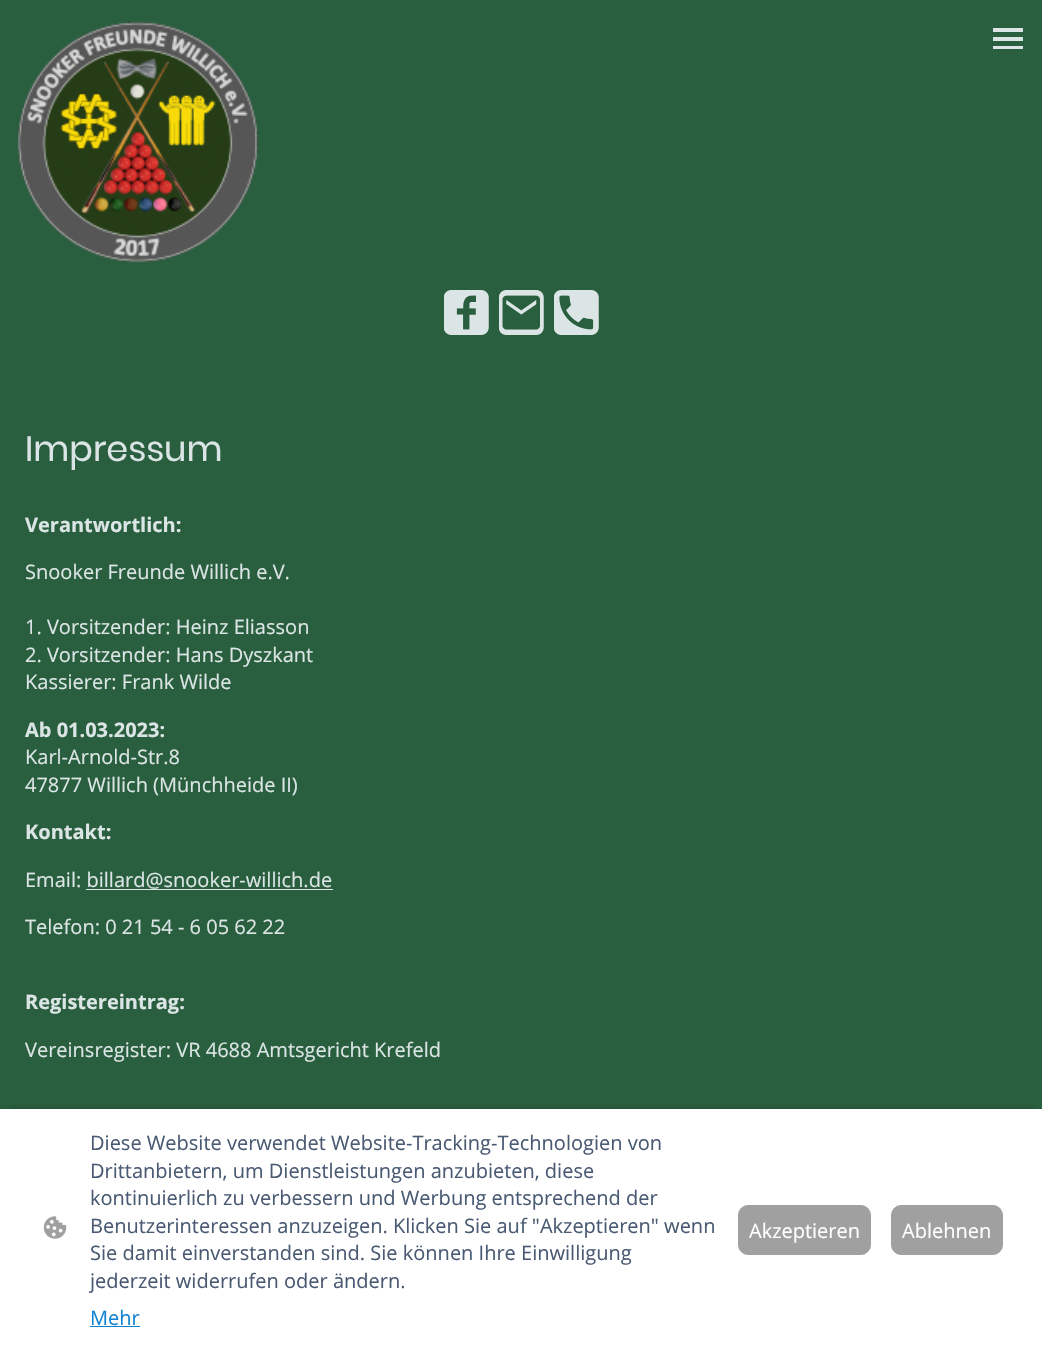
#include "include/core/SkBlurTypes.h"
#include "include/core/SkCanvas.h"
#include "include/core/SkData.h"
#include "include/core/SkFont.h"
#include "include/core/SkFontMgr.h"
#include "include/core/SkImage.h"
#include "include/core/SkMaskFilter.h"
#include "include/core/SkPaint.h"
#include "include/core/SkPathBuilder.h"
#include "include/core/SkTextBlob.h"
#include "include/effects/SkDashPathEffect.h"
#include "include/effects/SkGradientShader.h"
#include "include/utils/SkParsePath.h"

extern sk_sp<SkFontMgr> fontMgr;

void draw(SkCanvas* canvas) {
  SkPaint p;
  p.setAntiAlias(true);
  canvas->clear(SkColorSetRGB(41, 95, 63));
  canvas->drawImageRect(SkImages::DeferredFromEncodedData(SkData::MakeFromFileName("images/1.png")), SkRect::MakeLTRB(17, 21, 259, 263), SkSamplingOptions());
  p.setColor(SkColorSetRGB(220, 229, 229));
  canvas->drawRect(SkRect::MakeLTRB(993, 28, 1023, 32), p);
  canvas->drawRect(SkRect::MakeLTRB(993, 37, 1023, 41), p);
  canvas->drawRect(SkRect::MakeLTRB(993, 46, 1023, 49), p);
  canvas->drawImageRect(SkImages::DeferredFromEncodedData(SkData::MakeFromFileName("images/2.png")), SkRect::MakeLTRB(444, 290, 489, 335), SkSamplingOptions());
  canvas->drawImageRect(SkImages::DeferredFromEncodedData(SkData::MakeFromFileName("images/3.png")), SkRect::MakeLTRB(499, 290, 544, 335), SkSamplingOptions());
  canvas->drawImageRect(SkImages::DeferredFromEncodedData(SkData::MakeFromFileName("images/4.png")), SkRect::MakeLTRB(554, 290, 599, 335), SkSamplingOptions());
  canvas->drawRect(SkRect::MakeLTRB(86, 889, 333, 890), p);
  p.setColor(SkColorSetARGB(161, 0, 0, 0));
  p.setMaskFilter(SkMaskFilter::MakeBlur(kNormal_SkBlurStyle, 5));
  canvas->drawRect(SkRect::MakeLTRB(8, 1113, 1035, 1340), p);
  p.setMaskFilter(nullptr);
  p.setColor(SK_ColorWHITE);
  canvas->drawRect(SkRect::MakeLTRB(0, 1109, 1042, 1351), p);
  canvas->drawImageRect(SkImages::DeferredFromEncodedData(SkData::MakeFromFileName("images/5.png")), SkRect::MakeLTRB(43, 1216, 67, 1239), SkSamplingOptions());
  p.setColor(SkColorSetRGB(17, 131, 209));
  canvas->drawRect(SkRect::MakeLTRB(90, 1326, 140, 1327), p);
  p.setColor(SkColorSetRGB(160, 160, 160));
  canvas->drawRoundRect(SkRect::MakeLTRB(738.5f, 1205.5f, 870.5f, 1254.5f), 9.5f, 9.5f, p);
  p.setStyle(SkPaint::kStroke_Style);
  p.setStrokeWidth(1);
  canvas->drawRoundRect(SkRect::MakeLTRB(738.5f, 1205.5f, 870.5f, 1254.5f), 9.5f, 9.5f, p);
  p.setStyle(SkPaint::kFill_Style);
  canvas->drawRoundRect(SkRect::MakeLTRB(891.5f, 1205.5f, 1002.5f, 1254.5f), 9.5f, 9.5f, p);
  p.setStyle(SkPaint::kStroke_Style);
  canvas->drawRoundRect(SkRect::MakeLTRB(891.5f, 1205.5f, 1002.5f, 1254.5f), 9.5f, 9.5f, p);
  SkFont font1(fontMgr->matchFamilyStyle("Poppins", SkFontStyle::Normal()), 35);
  font1.setSubpixel(true);
  p.setStyle(SkPaint::kFill_Style);
  p.setColor(SkColorSetRGB(220, 229, 229));
  canvas->drawString("Impressum", 25, 461, font1, p);
  SkFont font2(fontMgr->matchFamilyStyle("Open Sans", SkFontStyle::Bold()), 20);
  font2.setSubpixel(true);
  canvas->drawString("Verantwortlich:", 25, 532, font2, p);
  SkFont font3(fontMgr->matchFamilyStyle("Open Sans", SkFontStyle::Normal()), 20);
  font3.setSubpixel(true);
  canvas->drawString("Snooker Freunde Willich e.V.", 25, 579, font3, p);
  canvas->drawString("1. Vorsitzender: Heinz Eliasson", 25, 634, font3, p);
  canvas->drawString("2. Vorsitzender: Hans Dyszkant", 25, 662, font3, p);
  canvas->drawString("Kassierer: Frank Wilde", 25, 689, font3, p);
  canvas->drawString("Ab 01.03.2023:", 25, 737, font2, p);
  canvas->drawString("Karl-Arnold-Str.8", 25, 764, font3, p);
  canvas->drawString("47877 Willich (Münchheide II)", 25, 792, font3, p);
  canvas->drawString("Kontakt:", 25, 839, font2, p);
  canvas->drawString("Email: billard@snooker-willich.de", 25, 887, font3, p);
  canvas->drawString("Telefon: 0 21 54 - 6 05 62 22", 25, 934, font3, p);
  canvas->drawString("Registereintrag:", 25, 1009, font2, p);
  canvas->drawString("Vereinsregister: VR 4688 Amtsgericht Krefeld", 25, 1057, font3, p);
  p.setColor(SkColorSetRGB(74, 90, 115));
  canvas->drawString("Diese Website verwendet Website-Tracking-Technologien von", 90, 1150, font3, p);
  canvas->drawString("Drittanbietern, um Dienstleistungen anzubieten, diese", 90, 1178, font3, p);
  canvas->drawString("kontinuierlich zu verbessern und Werbung entsprechend der", 90, 1205, font3, p);
  canvas->drawString("Benutzerinteressen anzuzeigen. Klicken Sie auf \"Akzeptieren\" wenn", 90, 1233, font3, p);
  canvas->drawString("Sie damit einverstanden sind. Sie können Ihre Einwilligung", 90, 1260, font3, p);
  canvas->drawString("jederzeit widerrufen oder ändern.", 90, 1288, font3, p);
  p.setColor(SkColorSetRGB(17, 131, 209));
  canvas->drawString("Mehr", 90, 1325, font3, p);
  p.setColor(SK_ColorWHITE);
  canvas->drawString("Akzeptieren", 749, 1238, font3, p);
  canvas->drawString("Ablehnen", 902, 1238, font3, p);
}
